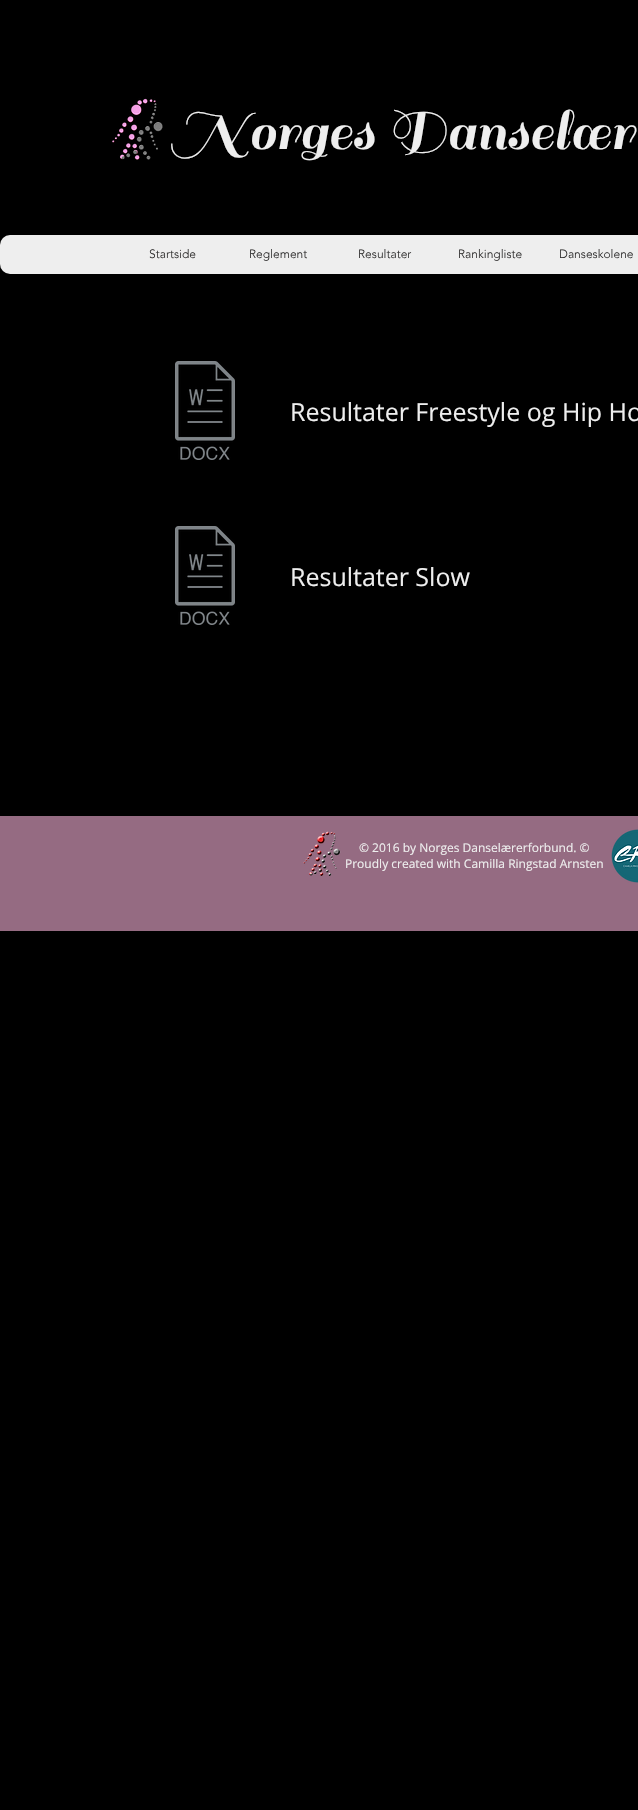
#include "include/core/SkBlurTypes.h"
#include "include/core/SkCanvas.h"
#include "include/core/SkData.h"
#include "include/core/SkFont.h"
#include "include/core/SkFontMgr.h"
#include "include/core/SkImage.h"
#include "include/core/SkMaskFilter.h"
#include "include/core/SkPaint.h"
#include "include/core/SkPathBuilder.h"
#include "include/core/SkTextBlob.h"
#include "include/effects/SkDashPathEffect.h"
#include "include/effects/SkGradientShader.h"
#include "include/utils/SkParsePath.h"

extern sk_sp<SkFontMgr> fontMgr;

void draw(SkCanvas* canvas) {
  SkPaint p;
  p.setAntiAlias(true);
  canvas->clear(SK_ColorBLACK);
  canvas->drawImageRect(SkImages::DeferredFromEncodedData(SkData::MakeFromFileName("images/1.png")), SkRect::MakeLTRB(112, 98, 163, 160), SkSamplingOptions());
  p.setColor(SkColorSetRGB(238, 238, 238));
  canvas->drawRoundRect(SkRect::MakeLTRB(0, 235, 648, 274), 10, 10, p);
  canvas->drawImageRect(SkImages::DeferredFromEncodedData(SkData::MakeFromFileName("images/2.png")), SkRect::MakeLTRB(175, 361, 235, 460), SkSamplingOptions());
  canvas->drawImageRect(SkImages::DeferredFromEncodedData(SkData::MakeFromFileName("images/2.png")), SkRect::MakeLTRB(175, 526, 235, 625), SkSamplingOptions());
  p.setColor(SkColorSetRGB(149, 107, 130));
  canvas->drawRect(SkRect::MakeLTRB(0, 816, 638, 931), p);
  canvas->drawImageRect(SkImages::DeferredFromEncodedData(SkData::MakeFromFileName("images/3.png")), SkRect::MakeLTRB(303, 831, 341, 877), SkSamplingOptions());
  canvas->drawImageRect(SkImages::DeferredFromEncodedData(SkData::MakeFromFileName("images/4.png")), SkRect::MakeLTRB(611, 829, 638, 883), SkSamplingOptions());
  SkFont font1(fontMgr->matchFamilyStyle("Sail", SkFontStyle::Normal()), 61);
  font1.setSubpixel(true);
  p.setColor(SkColorSetRGB(238, 238, 238));
  canvas->drawString("Norges Danselær", 170, 149, font1, p);
  SkFont font2(fontMgr->matchFamilyStyle("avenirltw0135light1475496", SkFontStyle(300, SkFontStyle::kNormal_Width, SkFontStyle::kUpright_Slant)), 12);
  font2.setSubpixel(true);
  p.setColor(SkColorSetRGB(47, 46, 46));
  canvas->drawString("Startside", 149, 258, font2, p);
  canvas->drawString("Reglement", 249, 258, font2, p);
  canvas->drawString("Resultater", 358, 258, font2, p);
  canvas->drawString("Rankingliste", 458, 258, font2, p);
  canvas->drawString("Danseskolene", 559, 258, font2, p);
  SkFont font3(fontMgr->matchFamilyStyle("Open Sans", SkFontStyle::Normal()), 25);
  font3.setSubpixel(true);
  p.setColor(SkColorSetRGB(238, 238, 238));
  canvas->drawString("Resultater Freestyle og Hip Ho", 290, 421, font3, p);
  canvas->drawString("Resultater Slow", 290, 586, font3, p);
  SkFont font4(fontMgr->matchFamilyStyle("Open Sans", SkFontStyle::Normal()), 12);
  font4.setSubpixel(true);
  canvas->drawString("© 2016 by Norges Danselærerforbund. ©", 359, 852, font4, p);
  canvas->drawString("Proudly created with Camilla Ringstad Arnsten", 345, 868, font4, p);
}
